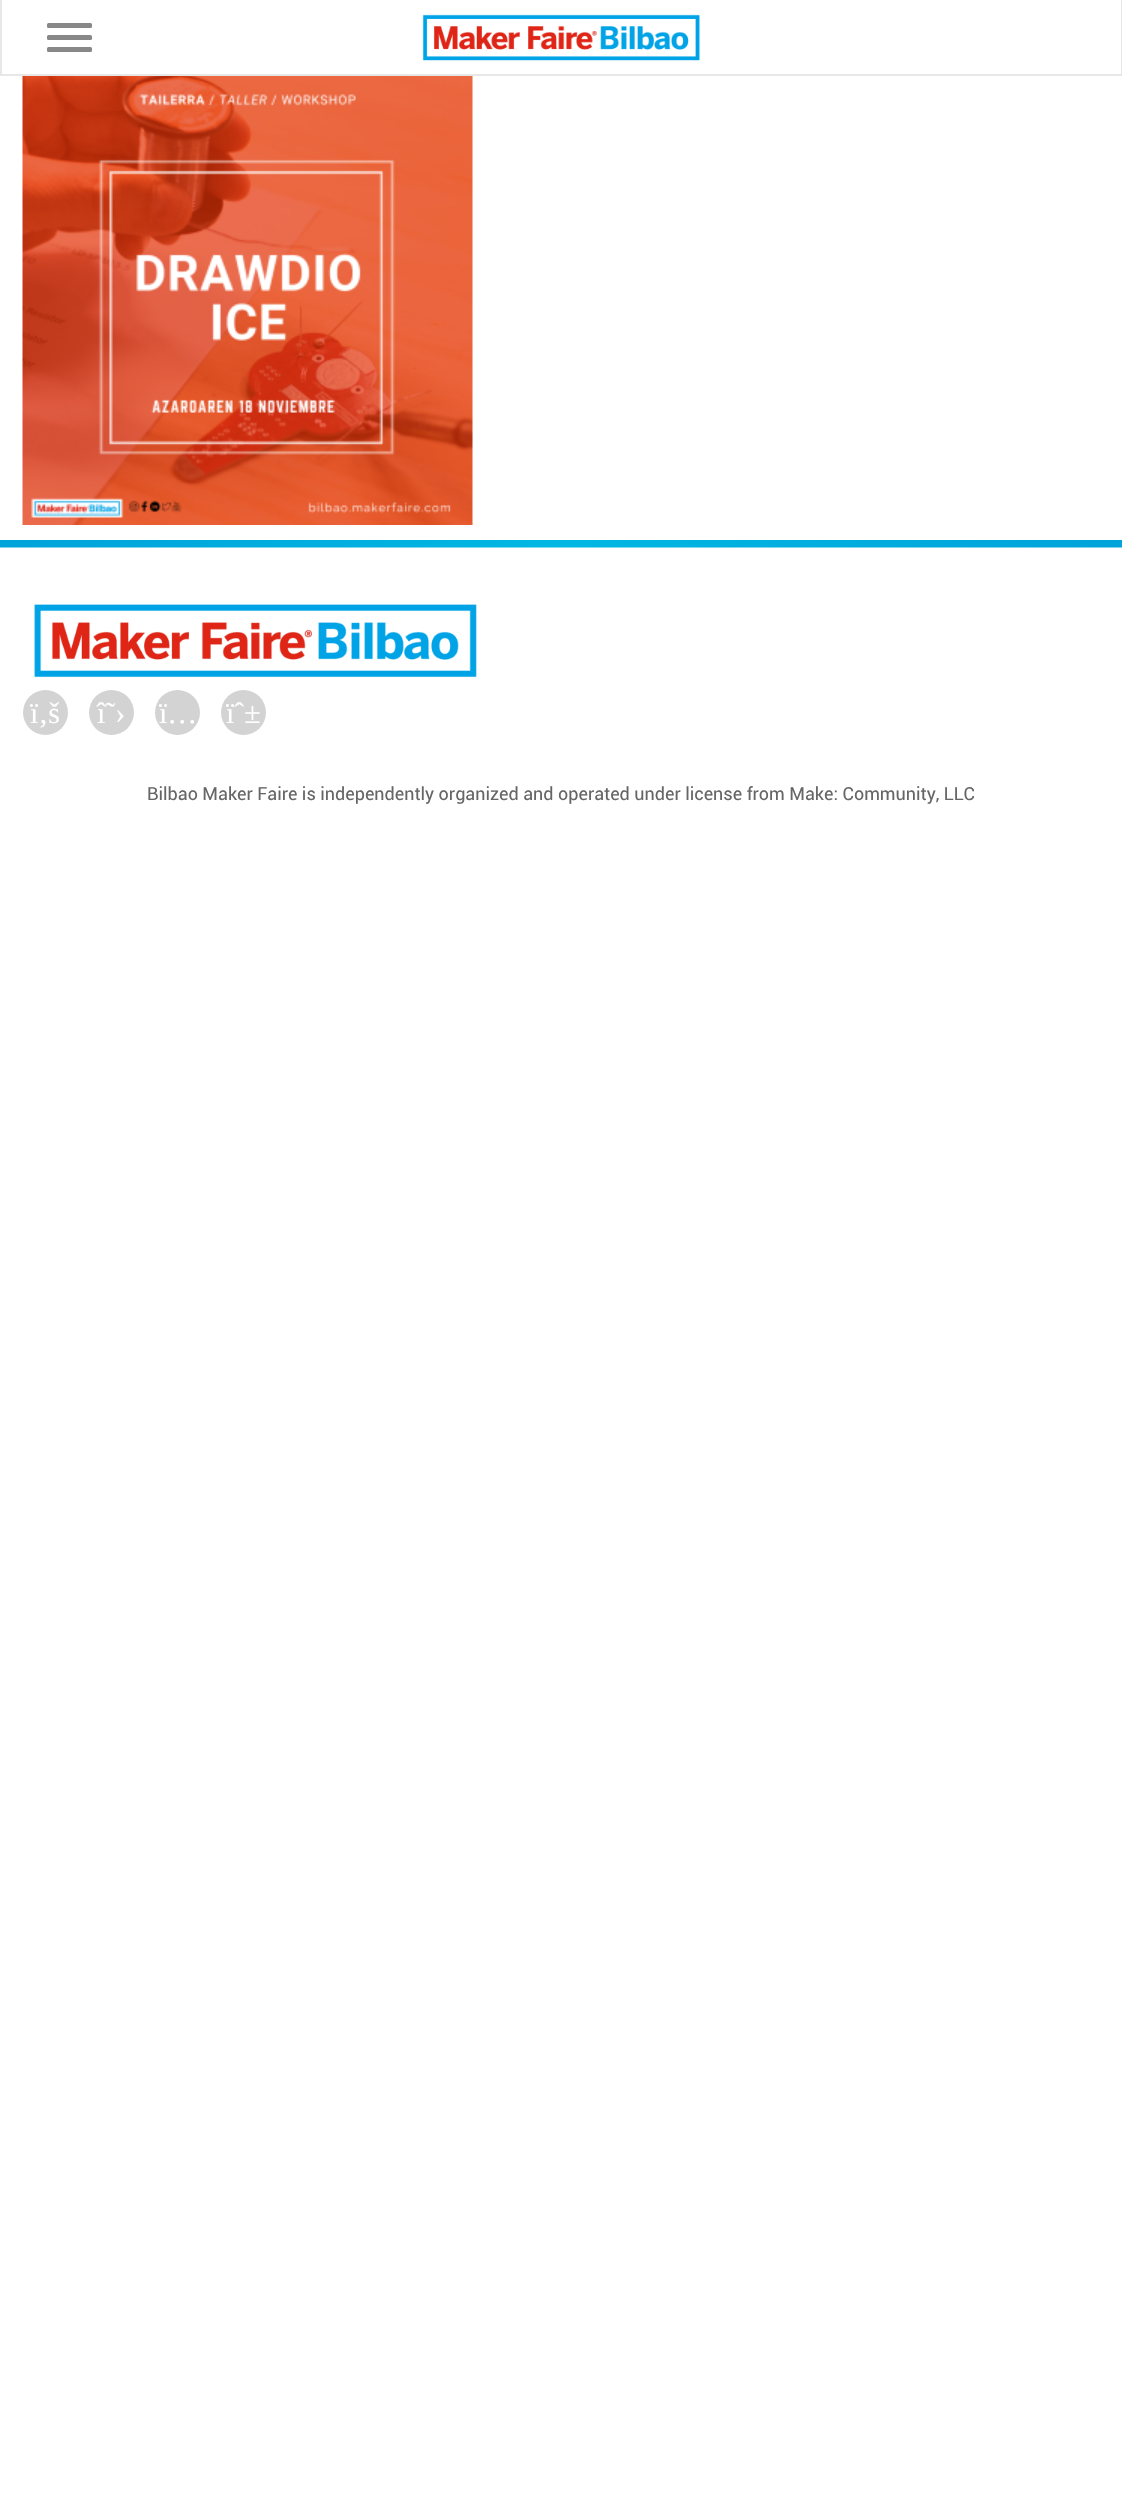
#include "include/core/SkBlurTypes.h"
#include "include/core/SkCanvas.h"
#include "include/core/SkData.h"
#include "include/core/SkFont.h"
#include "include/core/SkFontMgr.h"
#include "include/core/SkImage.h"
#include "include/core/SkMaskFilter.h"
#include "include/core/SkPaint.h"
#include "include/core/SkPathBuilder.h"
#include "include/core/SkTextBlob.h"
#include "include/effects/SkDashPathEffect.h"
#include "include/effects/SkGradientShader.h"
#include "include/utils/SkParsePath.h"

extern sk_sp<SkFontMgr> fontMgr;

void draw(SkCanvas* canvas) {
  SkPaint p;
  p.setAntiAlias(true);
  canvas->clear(SK_ColorWHITE);
  p.setColor(SkColorSetRGB(231, 231, 231));
  canvas->drawRect(SkRect::MakeLTRB(1121, 0, 1122, 75), p);
  canvas->drawRect(SkRect::MakeLTRB(0, 74, 1122, 76), p);
  canvas->drawRect(SkRect::MakeLTRB(0, 0, 2, 75), p);
  p.setColor(SkColorSetRGB(136, 136, 136));
  canvas->drawRoundRect(SkRect::MakeLTRB(47, 23, 92, 28), 1.5f, 1.5f, p);
  canvas->drawRoundRect(SkRect::MakeLTRB(47, 35, 92, 40), 1.5f, 1.5f, p);
  canvas->drawRoundRect(SkRect::MakeLTRB(47, 47, 92, 52), 1.5f, 1.5f, p);
  canvas->drawImageRect(SkImages::DeferredFromEncodedData(SkData::MakeFromFileName("images/1.png")), SkRect::MakeLTRB(422, 14, 700, 61), SkSamplingOptions());
  canvas->drawImageRect(SkImages::DeferredFromEncodedData(SkData::MakeFromFileName("images/2.png")), SkRect::MakeLTRB(22, 76, 473, 525), SkSamplingOptions());
  canvas->drawImageRect(SkImages::DeferredFromEncodedData(SkData::MakeFromFileName("images/3.png")), SkRect::MakeLTRB(0, 540, 1122, 548), SkSamplingOptions());
  canvas->drawImageRect(SkImages::DeferredFromEncodedData(SkData::MakeFromFileName("images/4.png")), SkRect::MakeLTRB(34, 604, 477, 678), SkSamplingOptions());
  p.setColor(SkColorSetRGB(211, 211, 211));
  canvas->drawCircle(45.5f, 712.5f, 22.5f, p);
  canvas->drawCircle(111.5f, 712.5f, 22.5f, p);
  canvas->drawCircle(177.5f, 712.5f, 22.5f, p);
  canvas->drawCircle(243.5f, 712.5f, 22.5f, p);
  SkFont font1(fontMgr->matchFamilyStyle("Liberation Serif", SkFontStyle::Normal()), 30);
  font1.setSubpixel(true);
  p.setColor(SK_ColorWHITE);
  canvas->drawString("ï‚š", 30, 723, font1, p);
  canvas->drawString("î˜›", 97, 723, font1, p);
  canvas->drawString("ï…", 159, 723, font1, p);
  canvas->drawString("ïˆ±", 226, 723, font1, p);
  SkFont font2(fontMgr->matchFamilyStyle("Roboto", SkFontStyle::Normal()), 18);
  font2.setSubpixel(true);
  p.setColor(SkColorSetRGB(102, 102, 102));
  canvas->drawString("Bilbao Maker Faire is independently organized and operated under license from Make: Community, LLC", 147, 800, font2, p);
}
